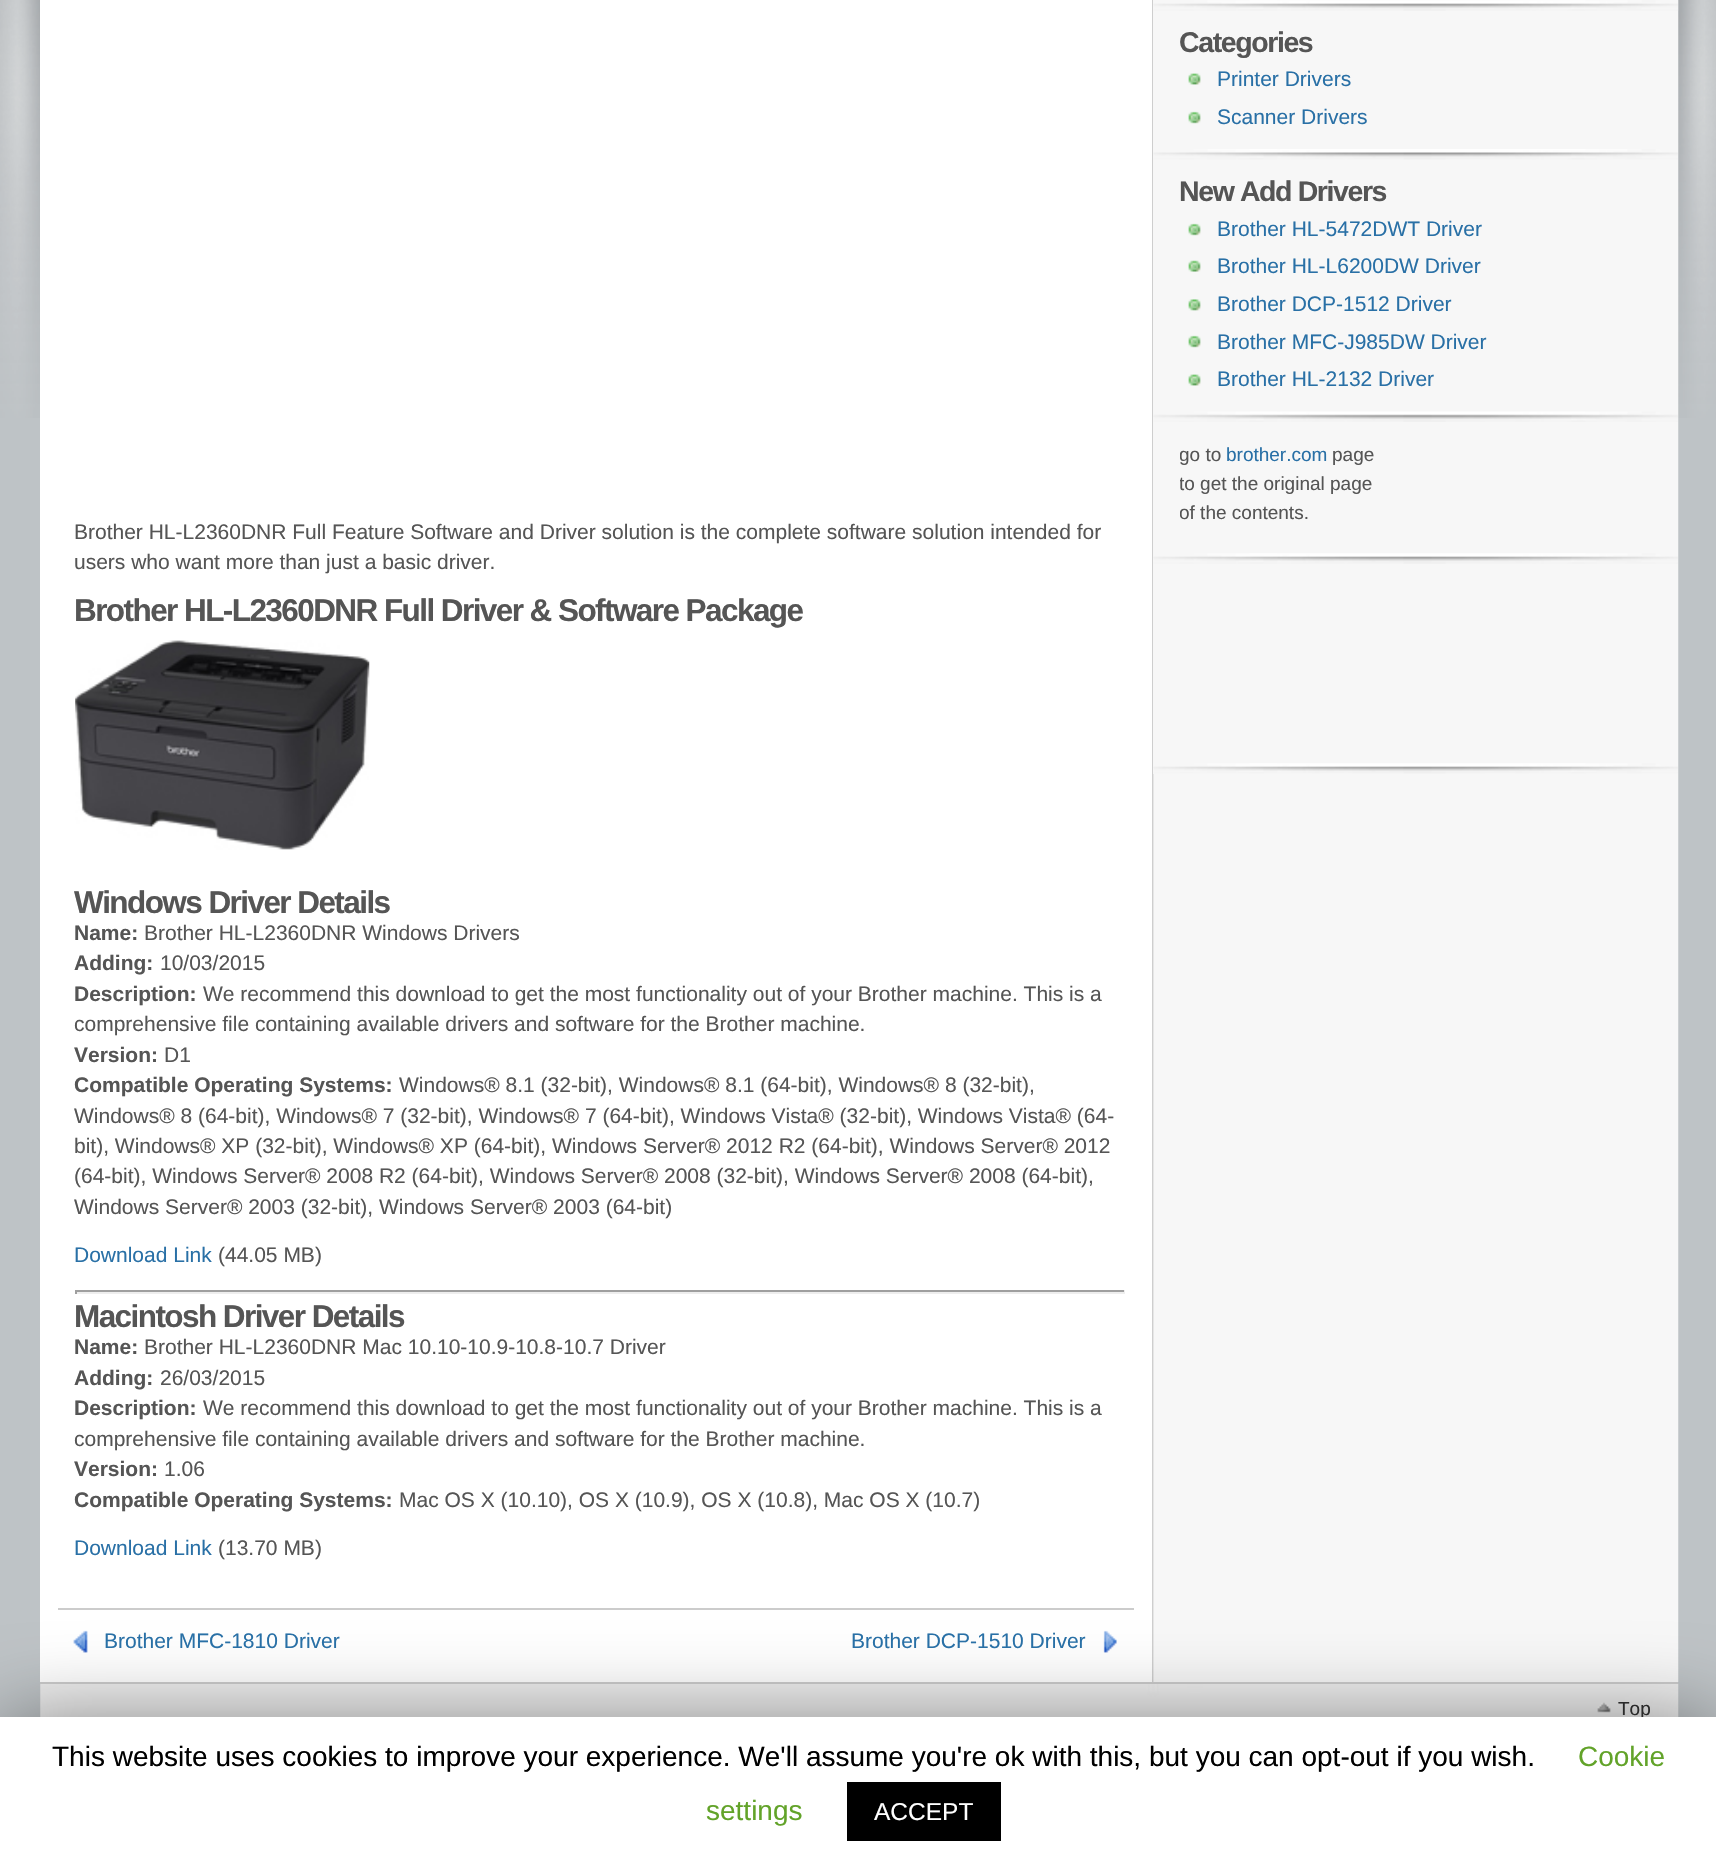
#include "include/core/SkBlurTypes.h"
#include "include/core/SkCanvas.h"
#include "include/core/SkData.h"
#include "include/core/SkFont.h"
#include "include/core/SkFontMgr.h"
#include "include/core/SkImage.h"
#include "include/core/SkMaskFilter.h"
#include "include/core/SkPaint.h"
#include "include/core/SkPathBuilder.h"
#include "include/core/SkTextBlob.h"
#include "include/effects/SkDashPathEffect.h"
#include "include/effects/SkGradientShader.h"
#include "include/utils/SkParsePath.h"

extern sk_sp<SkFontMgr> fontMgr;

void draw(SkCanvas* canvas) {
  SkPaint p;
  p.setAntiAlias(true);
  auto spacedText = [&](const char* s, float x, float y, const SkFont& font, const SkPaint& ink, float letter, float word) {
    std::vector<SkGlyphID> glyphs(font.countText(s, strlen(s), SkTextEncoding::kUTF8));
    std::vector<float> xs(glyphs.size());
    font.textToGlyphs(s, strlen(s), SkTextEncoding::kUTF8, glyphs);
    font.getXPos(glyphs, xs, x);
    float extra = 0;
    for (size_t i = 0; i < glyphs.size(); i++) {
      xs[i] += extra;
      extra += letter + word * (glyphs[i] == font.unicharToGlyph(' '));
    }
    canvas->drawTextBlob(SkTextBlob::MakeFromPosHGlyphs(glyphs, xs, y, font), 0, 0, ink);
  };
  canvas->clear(SkColorSetRGB(190, 195, 198));
  canvas->drawImageRect(SkImages::DeferredFromEncodedData(SkData::MakeFromFileName("images/1.png")), SkRect::MakeLTRB(0, 0, 1716, 418), SkSamplingOptions());
  canvas->drawImageRect(SkImages::DeferredFromEncodedData(SkData::MakeFromFileName("images/2.png")), SkRect::MakeLTRB(1152, 0, 1679, 1682), SkSamplingOptions());
  p.setColor(SkColorSetRGB(247, 247, 247));
  canvas->drawRect(SkRect::MakeLTRB(1153, 0, 1154, 774), p);
  canvas->drawImageRect(SkImages::DeferredFromEncodedData(SkData::MakeFromFileName("images/3.png")), SkRect::MakeLTRB(1153, 0, 1679, 11), SkSamplingOptions());
  canvas->drawImageRect(SkImages::DeferredFromEncodedData(SkData::MakeFromFileName("images/4.png")), SkRect::MakeLTRB(1153, 149, 1678, 160), SkSamplingOptions());
  canvas->drawImageRect(SkImages::DeferredFromEncodedData(SkData::MakeFromFileName("images/5.png")), SkRect::MakeLTRB(1188, 73, 1201, 85), SkSamplingOptions());
  canvas->drawImageRect(SkImages::DeferredFromEncodedData(SkData::MakeFromFileName("images/6.png")), SkRect::MakeLTRB(1188, 111, 1201, 124), SkSamplingOptions());
  canvas->drawImageRect(SkImages::DeferredFromEncodedData(SkData::MakeFromFileName("images/7.png")), SkRect::MakeLTRB(1153, 411, 1678, 422), SkSamplingOptions());
  canvas->drawImageRect(SkImages::DeferredFromEncodedData(SkData::MakeFromFileName("images/6.png")), SkRect::MakeLTRB(1188, 223, 1201, 236), SkSamplingOptions());
  canvas->drawImageRect(SkImages::DeferredFromEncodedData(SkData::MakeFromFileName("images/8.png")), SkRect::MakeLTRB(1188, 260, 1201, 272), SkSamplingOptions());
  canvas->drawImageRect(SkImages::DeferredFromEncodedData(SkData::MakeFromFileName("images/9.png")), SkRect::MakeLTRB(1188, 299, 1201, 311), SkSamplingOptions());
  canvas->drawImageRect(SkImages::DeferredFromEncodedData(SkData::MakeFromFileName("images/6.png")), SkRect::MakeLTRB(1188, 335, 1201, 348), SkSamplingOptions());
  canvas->drawImageRect(SkImages::DeferredFromEncodedData(SkData::MakeFromFileName("images/5.png")), SkRect::MakeLTRB(1188, 374, 1201, 386), SkSamplingOptions());
  canvas->drawImageRect(SkImages::DeferredFromEncodedData(SkData::MakeFromFileName("images/10.png")), SkRect::MakeLTRB(1153, 553, 1678, 564), SkSamplingOptions());
  canvas->drawImageRect(SkImages::DeferredFromEncodedData(SkData::MakeFromFileName("images/11.png")), SkRect::MakeLTRB(1153, 763, 1678, 774), SkSamplingOptions());
  p.setColor(SK_ColorWHITE);
  canvas->drawRect(SkRect::MakeLTRB(40, 0, 1152, 1682), p);
  canvas->drawImageRect(SkImages::DeferredFromEncodedData(SkData::MakeFromFileName("images/12.png")), SkRect::MakeLTRB(75, 640, 370, 850), SkSamplingOptions());
  p.setColor(SkColorSetRGB(159, 159, 159));
  canvas->drawRect(SkRect::MakeLTRB(75, 1290, 1125, 1292), p);
  p.setColor(SkColorSetRGB(238, 238, 238));
  canvas->drawRect(SkRect::MakeLTRB(1124, 1290, 1125, 1294), p);
  canvas->drawRect(SkRect::MakeLTRB(75, 1292, 1125, 1294), p);
  p.setColor(SkColorSetRGB(159, 159, 159));
  canvas->drawRect(SkRect::MakeLTRB(75, 1290, 77, 1294), p);
  p.setColor(SkColorSetRGB(204, 204, 204));
  canvas->drawRect(SkRect::MakeLTRB(58, 1608, 1134, 1610), p);
  canvas->drawImageRect(SkImages::DeferredFromEncodedData(SkData::MakeFromFileName("images/13.png")), SkRect::MakeLTRB(73, 1630, 88, 1653), SkSamplingOptions());
  canvas->drawImageRect(SkImages::DeferredFromEncodedData(SkData::MakeFromFileName("images/14.png")), SkRect::MakeLTRB(1103, 1630, 1117, 1653), SkSamplingOptions());
  canvas->drawImageRect(SkImages::DeferredFromEncodedData(SkData::MakeFromFileName("images/15.png")), SkRect::MakeLTRB(40, 1683, 1679, 1717), SkSamplingOptions());
  canvas->drawRect(SkRect::MakeLTRB(40, 1682, 1678, 1684), p);
  canvas->drawImageRect(SkImages::DeferredFromEncodedData(SkData::MakeFromFileName("images/16.png")), SkRect::MakeLTRB(1597, 1702, 1611, 1713), SkSamplingOptions());
  p.setColor(SkColorSetARGB(128, 0, 0, 0));
  p.setMaskFilter(SkMaskFilter::MakeBlur(kNormal_SkBlurStyle, 44));
  canvas->drawRect(SkRect::MakeLTRB(0, 1726, 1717, 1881), p);
  p.setMaskFilter(nullptr);
  SkFont font1(fontMgr->matchFamilyStyle("Liberation Sans", SkFontStyle::Bold()), 28.5f);
  font1.setSubpixel(true);
  p.setColor(SkColorSetRGB(85, 85, 85));
  spacedText("Categories", 1179, 52, font1, p, -1.4f, 0);
  SkFont font2(fontMgr->matchFamilyStyle("Liberation Sans", SkFontStyle::Normal()), 21);
  font2.setSubpixel(true);
  p.setColor(SkColorSetRGB(41, 112, 166));
  canvas->drawString("Printer Drivers", 1217, 86, font2, p);
  canvas->drawString("Scanner Drivers", 1217, 124, font2, p);
  p.setColor(SkColorSetRGB(85, 85, 85));
  spacedText("New Add Drivers", 1179, 201, font1, p, -1.4f, 0);
  p.setColor(SkColorSetRGB(41, 112, 166));
  canvas->drawString("Brother HL-5472DWT Driver", 1217, 236, font2, p);
  canvas->drawString("Brother HL-L6200DW Driver", 1217, 273, font2, p);
  canvas->drawString("Brother DCP-1512 Driver", 1217, 311, font2, p);
  canvas->drawString("Brother MFC-J985DW Driver", 1217, 349, font2, p);
  canvas->drawString("Brother HL-2132 Driver", 1217, 386, font2, p);
  canvas->save();
  canvas->clipRect(SkRect::MakeLTRB(1180, 439, 1400, 553));
  SkFont font3(fontMgr->matchFamilyStyle("Liberation Sans", SkFontStyle::Normal()), 19);
  font3.setSubpixel(true);
  p.setColor(SkColorSetRGB(85, 85, 85));
  canvas->drawString("go to", 1179, 461, font3, p);
  canvas->restore();
  p.setColor(SkColorSetRGB(41, 112, 166));
  canvas->drawString("brother.com", 1226, 461, font3, p);
  p.setColor(SkColorSetRGB(85, 85, 85));
  canvas->drawString("page", 1332, 461, font3, p);
  canvas->save();
  canvas->clipRect(SkRect::MakeLTRB(1180, 439, 1400, 553));
  canvas->drawString("to get the original page", 1179, 490, font3, p);
  canvas->drawString("of the contents.", 1179, 519, font3, p);
  canvas->restore();
  canvas->drawString("Brother HL-L2360DNR Full Feature Software and Driver solution is the complete software solution intended for", 74, 539, font2, p);
  canvas->drawString("users who want more than just a basic driver.", 74, 569, font2, p);
  SkFont font4(fontMgr->matchFamilyStyle("Liberation Sans", SkFontStyle::Bold()), 31.5f);
  font4.setSubpixel(true);
  spacedText("Brother HL-L2360DNR Full Driver & Software Package", 74, 621, font4, p, -1.57f, 0);
  spacedText("Windows Driver Details", 74, 913, font4, p, -1.57f, 0);
  SkFont font5(fontMgr->matchFamilyStyle("Liberation Sans", SkFontStyle::Bold()), 21);
  font5.setSubpixel(true);
  canvas->drawString("Name:", 74, 940, font5, p);
  canvas->drawString("Brother HL-L2360DNR Windows Drivers", 144, 940, font2, p);
  canvas->drawString("Adding:", 74, 970, font5, p);
  canvas->drawString("10/03/2015", 160, 970, font2, p);
  canvas->drawString("Description:", 74, 1001, font5, p);
  canvas->drawString("We recommend this download to get the most functionality out of your Brother machine. This is a", 203, 1001, font2, p);
  canvas->drawString("comprehensive file containing available drivers and software for the Brother machine.", 74, 1031, font2, p);
  canvas->drawString("Version:", 74, 1062, font5, p);
  canvas->drawString("D1", 164, 1062, font2, p);
  canvas->drawString("Compatible Operating Systems:", 74, 1092, font5, p);
  canvas->drawString("Windows® 8.1 (32-bit), Windows® 8.1 (64-bit), Windows® 8 (32-bit),", 399, 1092, font2, p);
  canvas->drawString("Windows® 8 (64-bit), Windows® 7 (32-bit), Windows® 7 (64-bit), Windows Vista® (32-bit), Windows Vista® (64-", 74, 1123, font2, p);
  canvas->drawString("bit), Windows® XP (32-bit), Windows® XP (64-bit), Windows Server® 2012 R2 (64-bit), Windows Server® 2012", 74, 1153, font2, p);
  canvas->drawString("(64-bit), Windows Server® 2008 R2 (64-bit), Windows Server® 2008 (32-bit), Windows Server® 2008 (64-bit),", 74, 1183, font2, p);
  canvas->drawString("Windows Server® 2003 (32-bit), Windows Server® 2003 (64-bit)", 74, 1214, font2, p);
  p.setColor(SkColorSetRGB(41, 112, 166));
  canvas->drawString("Download Link", 74, 1262, font2, p);
  p.setColor(SkColorSetRGB(85, 85, 85));
  canvas->drawString("(44.05 MB)", 218, 1262, font2, p);
  spacedText("Macintosh Driver Details", 74, 1327, font4, p, -1.57f, 0);
  canvas->drawString("Name:", 74, 1354, font5, p);
  canvas->drawString("Brother HL-L2360DNR Mac 10.10-10.9-10.8-10.7 Driver", 144, 1354, font2, p);
  canvas->drawString("Adding:", 74, 1385, font5, p);
  canvas->drawString("26/03/2015", 160, 1385, font2, p);
  canvas->drawString("Description:", 74, 1415, font5, p);
  canvas->drawString("We recommend this download to get the most functionality out of your Brother machine. This is a", 203, 1415, font2, p);
  canvas->drawString("comprehensive file containing available drivers and software for the Brother machine.", 74, 1446, font2, p);
  canvas->drawString("Version:", 74, 1476, font5, p);
  canvas->drawString("1.06", 164, 1476, font2, p);
  canvas->drawString("Compatible Operating Systems:", 74, 1507, font5, p);
  canvas->drawString("Mac OS X (10.10), OS X (10.9), OS X (10.8), Mac OS X (10.7)", 399, 1507, font2, p);
  p.setColor(SkColorSetRGB(41, 112, 166));
  canvas->drawString("Download Link", 74, 1555, font2, p);
  p.setColor(SkColorSetRGB(85, 85, 85));
  canvas->drawString("(13.70 MB)", 218, 1555, font2, p);
  p.setColor(SkColorSetRGB(41, 112, 166));
  canvas->drawString("Brother MFC-1810 Driver", 104, 1648, font2, p);
  canvas->drawString("Brother DCP-1510 Driver", 851, 1648, font2, p);
  p.setColor(SkColorSetRGB(42, 42, 42));
  canvas->drawString("Top", 1618, 1715, font3, p);
  p.setColor(SK_ColorWHITE);
  canvas->drawRect(SkRect::MakeLTRB(0, 1717, 1716, 1872), p);
  SkFont font6(fontMgr->matchFamilyStyle("Liberation Sans", SkFontStyle::Normal()), 28);
  font6.setSubpixel(true);
  p.setColor(SK_ColorBLACK);
  canvas->drawString("This website uses cookies to improve your experience. We'll assume you're ok with this, but you can opt-out if you wish.", 52, 1766, font6, p);
  p.setColor(SkColorSetRGB(98, 163, 41));
  canvas->drawString("Cookie", 1578, 1766, font6, p);
  canvas->drawString("settings", 706, 1820, font6, p);
  p.setColor(SK_ColorBLACK);
  canvas->drawRect(SkRect::MakeLTRB(847, 1782, 1001, 1841), p);
  SkFont font7(fontMgr->matchFamilyStyle("Liberation Sans", SkFontStyle::Normal()), 24.5f);
  font7.setSubpixel(true);
  p.setColor(SK_ColorWHITE);
  canvas->drawString("ACCEPT", 874, 1820, font7, p);
}
